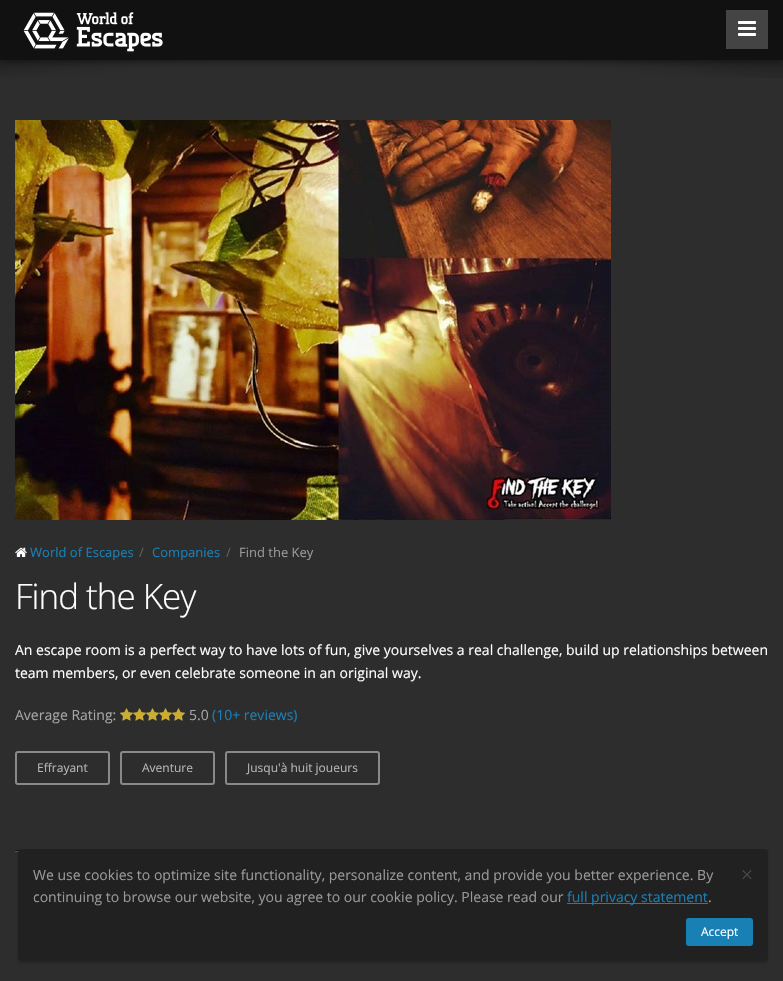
#include "include/core/SkBlurTypes.h"
#include "include/core/SkCanvas.h"
#include "include/core/SkData.h"
#include "include/core/SkFont.h"
#include "include/core/SkFontMgr.h"
#include "include/core/SkImage.h"
#include "include/core/SkMaskFilter.h"
#include "include/core/SkPaint.h"
#include "include/core/SkPathBuilder.h"
#include "include/core/SkTextBlob.h"
#include "include/effects/SkDashPathEffect.h"
#include "include/effects/SkGradientShader.h"
#include "include/utils/SkParsePath.h"

extern sk_sp<SkFontMgr> fontMgr;

void draw(SkCanvas* canvas) {
  SkPaint p;
  p.setAntiAlias(true);
  auto spacedText = [&](const char* s, float x, float y, const SkFont& font, const SkPaint& ink, float letter, float word) {
    std::vector<SkGlyphID> glyphs(font.countText(s, strlen(s), SkTextEncoding::kUTF8));
    std::vector<float> xs(glyphs.size());
    font.textToGlyphs(s, strlen(s), SkTextEncoding::kUTF8, glyphs);
    font.getXPos(glyphs, xs, x);
    float extra = 0;
    for (size_t i = 0; i < glyphs.size(); i++) {
      xs[i] += extra;
      extra += letter + word * (glyphs[i] == font.unicharToGlyph(' '));
    }
    canvas->drawTextBlob(SkTextBlob::MakeFromPosHGlyphs(glyphs, xs, y, font), 0, 0, ink);
  };
  canvas->clear(SkColorSetRGB(45, 45, 45));
  canvas->drawImageRect(SkImages::DeferredFromEncodedData(SkData::MakeFromFileName("images/3.png")), SkRect::MakeLTRB(0, 60, 783, 78), SkSamplingOptions());
  p.setColor(SkColorSetRGB(17, 17, 17));
  p.setMaskFilter(SkMaskFilter::MakeBlur(kNormal_SkBlurStyle, 4));
  canvas->drawRect(SkRect::MakeLTRB(0, 0, 783, 60), p);
  p.setMaskFilter(nullptr);
  canvas->drawRect(SkRect::MakeLTRB(0, 0, 783, 60), p);
  canvas->drawImageRect(SkImages::DeferredFromEncodedData(SkData::MakeFromFileName("images/1.png")), SkRect::MakeLTRB(23, 12, 163, 52), SkSamplingOptions());
  p.setColor(SkColorSetRGB(68, 68, 68));
  canvas->drawRect(SkRect::MakeLTRB(726, 10, 768, 49), p);
  canvas->drawImageRect(SkImages::DeferredFromEncodedData(SkData::MakeFromFileName("images/2.png")), SkRect::MakeLTRB(738, 21, 756, 36), SkSamplingOptions());
  canvas->drawImageRect(SkImages::DeferredFromEncodedData(SkData::MakeFromFileName("images/4.png")), SkRect::MakeLTRB(15, 120, 611, 520), SkSamplingOptions());
  canvas->drawImageRect(SkImages::DeferredFromEncodedData(SkData::MakeFromFileName("images/5.png")), SkRect::MakeLTRB(15, 547, 27, 557), SkSamplingOptions());
  canvas->drawImageRect(SkImages::DeferredFromEncodedData(SkData::MakeFromFileName("images/6.png")), SkRect::MakeLTRB(120, 708, 133, 721), SkSamplingOptions());
  canvas->drawImageRect(SkImages::DeferredFromEncodedData(SkData::MakeFromFileName("images/6.png")), SkRect::MakeLTRB(133, 708, 146, 721), SkSamplingOptions());
  canvas->drawImageRect(SkImages::DeferredFromEncodedData(SkData::MakeFromFileName("images/6.png")), SkRect::MakeLTRB(146, 708, 159, 721), SkSamplingOptions());
  canvas->drawImageRect(SkImages::DeferredFromEncodedData(SkData::MakeFromFileName("images/6.png")), SkRect::MakeLTRB(159, 708, 172, 721), SkSamplingOptions());
  canvas->drawImageRect(SkImages::DeferredFromEncodedData(SkData::MakeFromFileName("images/6.png")), SkRect::MakeLTRB(172, 708, 185, 721), SkSamplingOptions());
  p.setStyle(SkPaint::kStroke_Style);
  p.setStrokeWidth(2);
  p.setColor(SkColorSetRGB(137, 137, 137));
  canvas->drawRoundRect(SkRect::MakeLTRB(16, 752, 109, 784), 2, 2, p);
  canvas->drawRoundRect(SkRect::MakeLTRB(121, 752, 214, 784), 2, 2, p);
  canvas->drawRoundRect(SkRect::MakeLTRB(226, 752, 379, 784), 2, 2, p);
  p.setStyle(SkPaint::kFill_Style);
  p.setColor(SkColorSetRGB(22, 22, 22));
  canvas->drawRect(SkRect::MakeLTRB(15, 850, 768, 851), p);
  p.setColor(SkColorSetRGB(85, 85, 85));
  canvas->drawRect(SkRect::MakeLTRB(15, 851, 768, 852), p);
  p.setColor(SkColorSetARGB(51, 0, 0, 0));
  p.setMaskFilter(SkMaskFilter::MakeBlur(kNormal_SkBlurStyle, 1.5f));
  canvas->drawRoundRect(SkRect::MakeLTRB(18, 851, 768, 963), 4, 4, p);
  p.setMaskFilter(nullptr);
  p.setColor(SkColorSetRGB(33, 33, 33));
  canvas->drawRoundRect(SkRect::MakeLTRB(18, 849, 768, 961), 4, 4, p);
  p.setColor(SkColorSetRGB(25, 128, 182));
  canvas->drawRect(SkRect::MakeLTRB(567, 903, 708, 904), p);
  canvas->drawRoundRect(SkRect::MakeLTRB(686, 918, 753, 946), 3, 3, p);
  SkFont font1(fontMgr->matchFamilyStyle("Open Sans", SkFontStyle::Normal()), 13);
  font1.setSubpixel(true);
  canvas->drawString("World of Escapes", 30, 557, font1, p);
  p.setColor(SkColorSetRGB(94, 94, 94));
  canvas->drawString("/", 139, 557, font1, p);
  p.setColor(SkColorSetRGB(25, 128, 182));
  canvas->drawString("Companies", 152, 557, font1, p);
  p.setColor(SkColorSetRGB(94, 94, 94));
  canvas->drawString("/", 226, 557, font1, p);
  p.setColor(SkColorSetRGB(153, 153, 153));
  canvas->drawString("Find the Key", 239, 557, font1, p);
  SkFont font2(fontMgr->matchFamilyStyle("Open Sans", SkFontStyle(300, SkFontStyle::kNormal_Width, SkFontStyle::kUpright_Slant)), 35);
  font2.setSubpixel(true);
  p.setColor(SK_ColorWHITE);
  spacedText("Find the Key", 15, 609, font2, p, -1, 0);
  SkFont font3(fontMgr->matchFamilyStyle("Open Sans", SkFontStyle::Normal()), 14);
  font3.setSubpixel(true);
  canvas->drawString("An escape room is a perfect way to have lots of fun, give yourselves a real challenge, build up relationships between", 15, 655, font3, p);
  canvas->drawString("team members, or even celebrate someone in an original way.", 15, 678, font3, p);
  p.setColor(SkColorSetRGB(164, 166, 168));
  canvas->drawString("Average Rating:", 15, 720, font3, p);
  canvas->drawString("5.0", 189, 720, font3, p);
  p.setColor(SkColorSetRGB(25, 128, 182));
  canvas->drawString("(10+ reviews)", 212, 720, font3, p);
  SkFont font4(fontMgr->matchFamilyStyle("Open Sans", SkFontStyle::Normal()), 12);
  font4.setSubpixel(true);
  p.setColor(SkColorSetRGB(182, 182, 182));
  canvas->drawString("Effrayant", 37, 772, font4, p);
  canvas->drawString("Aventure", 142, 772, font4, p);
  canvas->drawString("Jusqu'à huit joueurs", 247, 772, font4, p);
  p.setColor(SkColorSetRGB(153, 153, 153));
  canvas->drawString("We use cookies to optimize site functionality, personalize content, and provide you better experience. By", 33, 880, font3, p);
  canvas->drawString("continuing to browse our website, you agree to our cookie policy. Please read our", 33, 902, font3, p);
  p.setColor(SkColorSetRGB(25, 128, 182));
  canvas->drawString("full privacy statement", 567, 902, font3, p);
  p.setColor(SkColorSetRGB(153, 153, 153));
  canvas->drawString(".", 708, 902, font3, p);
  SkFont font5(fontMgr->matchFamilyStyle("Open Sans", SkFontStyle(300, SkFontStyle::kNormal_Width, SkFontStyle::kUpright_Slant)), 21);
  font5.setSubpixel(true);
  p.setColor(SkColorSetRGB(77, 77, 77));
  canvas->drawString("×", 741, 882, font5, p);
  p.setColor(SK_ColorWHITE);
  canvas->drawString("Accept", 701, 936, font4, p);
}
